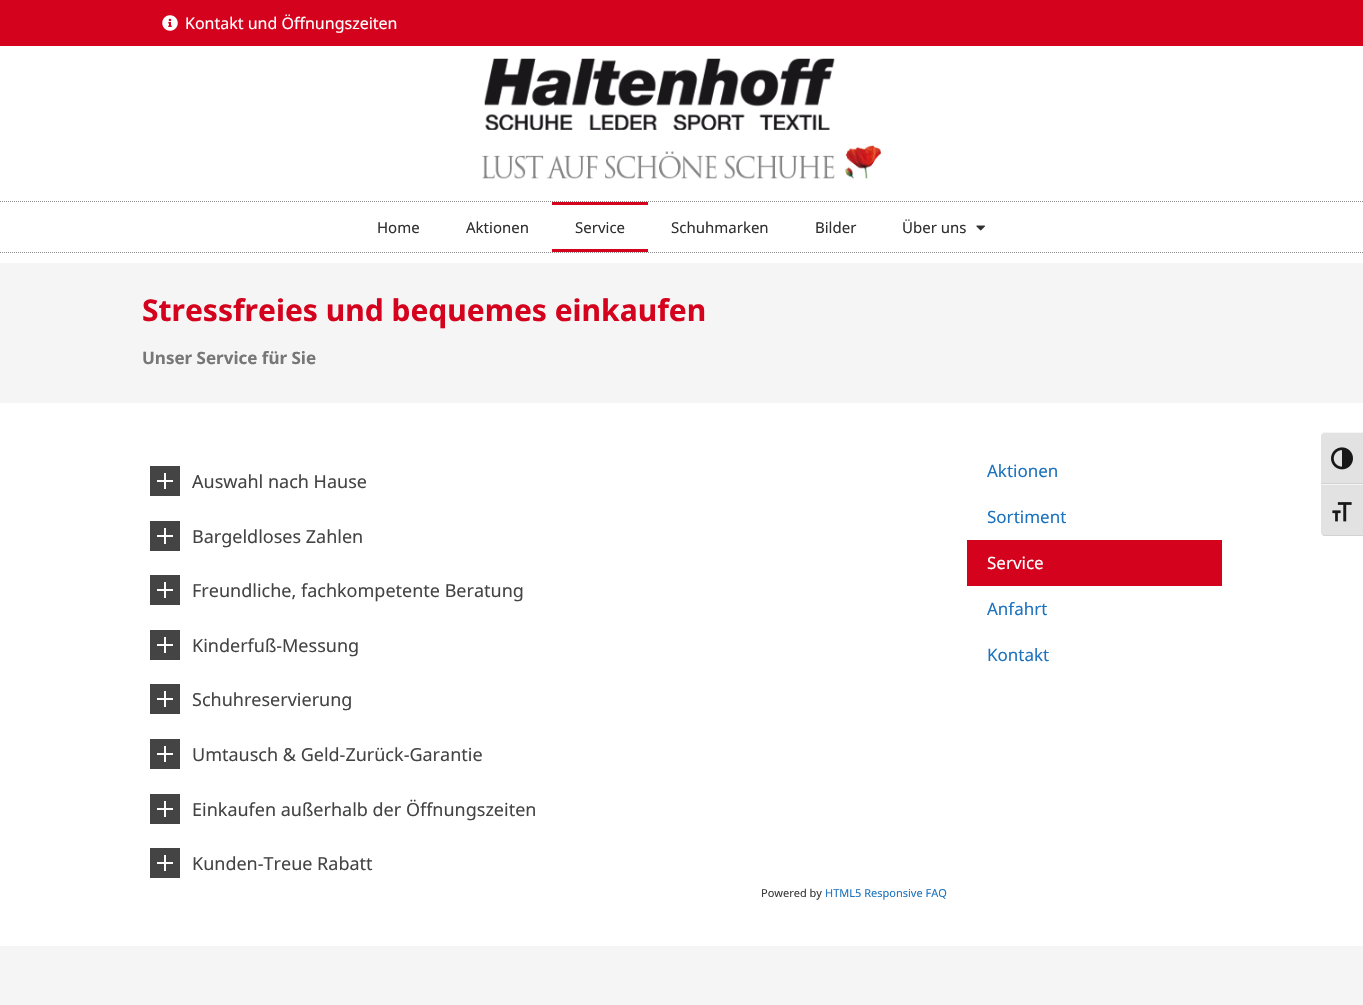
#include "include/core/SkBlurTypes.h"
#include "include/core/SkCanvas.h"
#include "include/core/SkData.h"
#include "include/core/SkFont.h"
#include "include/core/SkFontMgr.h"
#include "include/core/SkImage.h"
#include "include/core/SkMaskFilter.h"
#include "include/core/SkPaint.h"
#include "include/core/SkPathBuilder.h"
#include "include/core/SkTextBlob.h"
#include "include/effects/SkDashPathEffect.h"
#include "include/effects/SkGradientShader.h"
#include "include/utils/SkParsePath.h"

extern sk_sp<SkFontMgr> fontMgr;

void draw(SkCanvas* canvas) {
  SkPaint p;
  p.setAntiAlias(true);
  canvas->clear(SK_ColorWHITE);
  p.setColor(SkColorSetRGB(212, 2, 29));
  canvas->drawRect(SkRect::MakeLTRB(0, 0, 1363, 46), p);
  canvas->drawImageRect(SkImages::DeferredFromEncodedData(SkData::MakeFromFileName("images/1.png")), SkRect::MakeLTRB(162, 15, 178, 31), SkSamplingOptions());
  canvas->drawImageRect(SkImages::DeferredFromEncodedData(SkData::MakeFromFileName("images/2.png")), SkRect::MakeLTRB(482, 58, 881, 179), SkSamplingOptions());
  p.setStyle(SkPaint::kStroke_Style);
  p.setStrokeWidth(1);
  p.setColor(SkColorSetRGB(142, 142, 142));
  p.setPathEffect(SkDashPathEffect::Make({{1, 1}}, 0));
  canvas->drawPath(SkPathBuilder().moveTo(0, 201.5f).lineTo(1363, 201.5f).detach(), p);
  p.setPathEffect(nullptr);
  p.setPathEffect(SkDashPathEffect::Make({{1, 1}}, 0));
  canvas->drawPath(SkPathBuilder().moveTo(0, 252.5f).lineTo(1363, 252.5f).detach(), p);
  p.setPathEffect(nullptr);
  p.setStyle(SkPaint::kFill_Style);
  p.setColor(SkColorSetRGB(212, 2, 29));
  canvas->drawRect(SkRect::MakeLTRB(552, 202, 648, 205), p);
  canvas->drawRect(SkRect::MakeLTRB(552, 249, 648, 252), p);
  canvas->drawImageRect(SkImages::DeferredFromEncodedData(SkData::MakeFromFileName("images/3.png")), SkRect::MakeLTRB(976, 225, 985, 231), SkSamplingOptions());
  p.setColor(SkColorSetRGB(245, 245, 245));
  canvas->drawRect(SkRect::MakeLTRB(0, 263, 1363, 403), p);
  p.setColor(SkColorSetRGB(68, 68, 68));
  canvas->drawRect(SkRect::MakeLTRB(150, 466, 180, 496), p);
  canvas->drawImageRect(SkImages::DeferredFromEncodedData(SkData::MakeFromFileName("images/4.png")), SkRect::MakeLTRB(157, 473, 173, 489), SkSamplingOptions());
  canvas->drawRect(SkRect::MakeLTRB(150, 521, 180, 551), p);
  canvas->drawImageRect(SkImages::DeferredFromEncodedData(SkData::MakeFromFileName("images/4.png")), SkRect::MakeLTRB(157, 528, 173, 544), SkSamplingOptions());
  canvas->drawRect(SkRect::MakeLTRB(150, 575, 180, 605), p);
  canvas->drawImageRect(SkImages::DeferredFromEncodedData(SkData::MakeFromFileName("images/4.png")), SkRect::MakeLTRB(157, 582, 173, 598), SkSamplingOptions());
  canvas->drawRect(SkRect::MakeLTRB(150, 630, 180, 660), p);
  canvas->drawImageRect(SkImages::DeferredFromEncodedData(SkData::MakeFromFileName("images/4.png")), SkRect::MakeLTRB(157, 637, 173, 653), SkSamplingOptions());
  canvas->drawRect(SkRect::MakeLTRB(150, 684, 180, 714), p);
  canvas->drawImageRect(SkImages::DeferredFromEncodedData(SkData::MakeFromFileName("images/4.png")), SkRect::MakeLTRB(157, 691, 173, 707), SkSamplingOptions());
  canvas->drawRect(SkRect::MakeLTRB(150, 739, 180, 769), p);
  canvas->drawImageRect(SkImages::DeferredFromEncodedData(SkData::MakeFromFileName("images/4.png")), SkRect::MakeLTRB(157, 746, 173, 762), SkSamplingOptions());
  canvas->drawRect(SkRect::MakeLTRB(150, 794, 180, 824), p);
  canvas->drawImageRect(SkImages::DeferredFromEncodedData(SkData::MakeFromFileName("images/4.png")), SkRect::MakeLTRB(157, 801, 173, 817), SkSamplingOptions());
  canvas->drawRect(SkRect::MakeLTRB(150, 848, 180, 878), p);
  canvas->drawImageRect(SkImages::DeferredFromEncodedData(SkData::MakeFromFileName("images/4.png")), SkRect::MakeLTRB(157, 855, 173, 871), SkSamplingOptions());
  p.setColor(SkColorSetRGB(212, 2, 29));
  canvas->drawRect(SkRect::MakeLTRB(967, 540, 1222, 586), p);
  p.setColor(SkColorSetRGB(226, 226, 226));
  canvas->drawPath(SkPathBuilder().moveTo(1325, 432).lineTo(1363, 432).lineTo(1363, 484).lineTo(1321, 484).lineTo(1321, 436).cubicTo(1321, 434, 1323, 432, 1325, 432).close().detach(), p);
  p.setColor(SkColorSetRGB(245, 245, 245));
  canvas->drawPath(SkPathBuilder().moveTo(1325, 433).lineTo(1363, 433).lineTo(1363, 432).lineTo(1325, 432).cubicTo(1323, 432, 1321, 434, 1321, 436).cubicTo(1321, 434, 1323, 433, 1325, 433).close().detach(), p);
  p.setColor(SkColorSetRGB(210, 210, 210));
  canvas->drawRect(SkRect::MakeLTRB(1321, 483, 1363, 484), p);
  canvas->drawImageRect(SkImages::DeferredFromEncodedData(SkData::MakeFromFileName("images/5.png")), SkRect::MakeLTRB(1331, 447, 1353, 470), SkSamplingOptions());
  p.setColor(SkColorSetRGB(226, 226, 226));
  canvas->drawPath(SkPathBuilder().moveTo(1321, 484).lineTo(1363, 484).lineTo(1363, 536).lineTo(1325, 536).cubicTo(1323, 536, 1321, 534, 1321, 532).close().detach(), p);
  p.setColor(SkColorSetRGB(245, 245, 245));
  canvas->drawRect(SkRect::MakeLTRB(1321, 484, 1363, 485), p);
  p.setColor(SkColorSetRGB(210, 210, 210));
  canvas->drawPath(SkPathBuilder().moveTo(1363, 536).lineTo(1363, 535).lineTo(1325, 535).cubicTo(1323, 535, 1321, 534, 1321, 532).cubicTo(1321, 534, 1323, 536, 1325, 536).close().detach(), p);
  canvas->drawImageRect(SkImages::DeferredFromEncodedData(SkData::MakeFromFileName("images/6.png")), SkRect::MakeLTRB(1332, 502, 1352, 522), SkSamplingOptions());
  p.setColor(SkColorSetRGB(245, 245, 245));
  canvas->drawRect(SkRect::MakeLTRB(0, 946, 1363, 1005), p);
  SkFont font1(fontMgr->matchFamilyStyle("Noto Sans", SkFontStyle::Normal()), 16);
  font1.setSubpixel(true);
  p.setColor(SK_ColorWHITE);
  canvas->drawString("Kontakt und Öffnungszeiten", 185, 29, font1, p);
  SkFont font2(fontMgr->matchFamilyStyle("Noto Sans", SkFontStyle::Normal()), 15);
  font2.setSubpixel(true);
  p.setColor(SkColorSetRGB(48, 48, 48));
  canvas->drawString("Home", 377, 233, font2, p);
  canvas->drawString("Aktionen", 466, 233, font2, p);
  canvas->drawString("Service", 575, 233, font2, p);
  canvas->drawString("Schuhmarken", 671, 233, font2, p);
  canvas->drawString("Bilder", 815, 233, font2, p);
  canvas->drawString("Über uns", 902, 233, font2, p);
  SkFont font3(fontMgr->matchFamilyStyle("Noto Sans", SkFontStyle::Bold()), 30);
  font3.setSubpixel(true);
  p.setColor(SkColorSetRGB(212, 2, 29));
  canvas->drawString("Stressfreies und bequemes einkaufen", 142, 321, font3, p);
  SkFont font4(fontMgr->matchFamilyStyle("Noto Sans", SkFontStyle::Bold()), 17);
  font4.setSubpixel(true);
  p.setColor(SkColorSetRGB(119, 119, 119));
  canvas->drawString("Unser Service für Sie", 142, 364, font4, p);
  SkFont font5(fontMgr->matchFamilyStyle("Noto Sans", SkFontStyle::Normal()), 18);
  font5.setSubpixel(true);
  p.setColor(SkColorSetRGB(68, 68, 68));
  canvas->drawString("Auswahl nach Hause", 192, 488, font5, p);
  canvas->drawString("Bargeldloses Zahlen", 192, 543, font5, p);
  canvas->drawString("Freundliche, fachkompetente Beratung", 192, 597, font5, p);
  canvas->drawString("Kinderfuß-Messung", 192, 652, font5, p);
  canvas->drawString("Schuhreservierung", 192, 706, font5, p);
  canvas->drawString("Umtausch & Geld-Zurück-Garantie", 192, 761, font5, p);
  canvas->drawString("Einkaufen außerhalb der Öffnungszeiten", 192, 816, font5, p);
  canvas->drawString("Kunden-Treue Rabatt", 192, 870, font5, p);
  SkFont font6(fontMgr->matchFamilyStyle("Noto Sans", SkFontStyle::Normal()), 11);
  font6.setSubpixel(true);
  p.setColor(SkColorSetRGB(58, 58, 58));
  canvas->drawString("Powered by", 761, 897, font6, p);
  p.setColor(SkColorSetRGB(30, 115, 190));
  canvas->drawString("HTML5 Responsive FAQ", 825, 897, font6, p);
  SkFont font7(fontMgr->matchFamilyStyle("Noto Sans", SkFontStyle::Normal()), 17);
  font7.setSubpixel(true);
  canvas->drawString("Aktionen", 987, 477, font7, p);
  canvas->drawString("Sortiment", 987, 523, font7, p);
  p.setColor(SK_ColorWHITE);
  canvas->drawString("Service", 987, 569, font7, p);
  p.setColor(SkColorSetRGB(30, 115, 190));
  canvas->drawString("Anfahrt", 987, 615, font7, p);
  canvas->drawString("Kontakt", 987, 661, font7, p);
}
